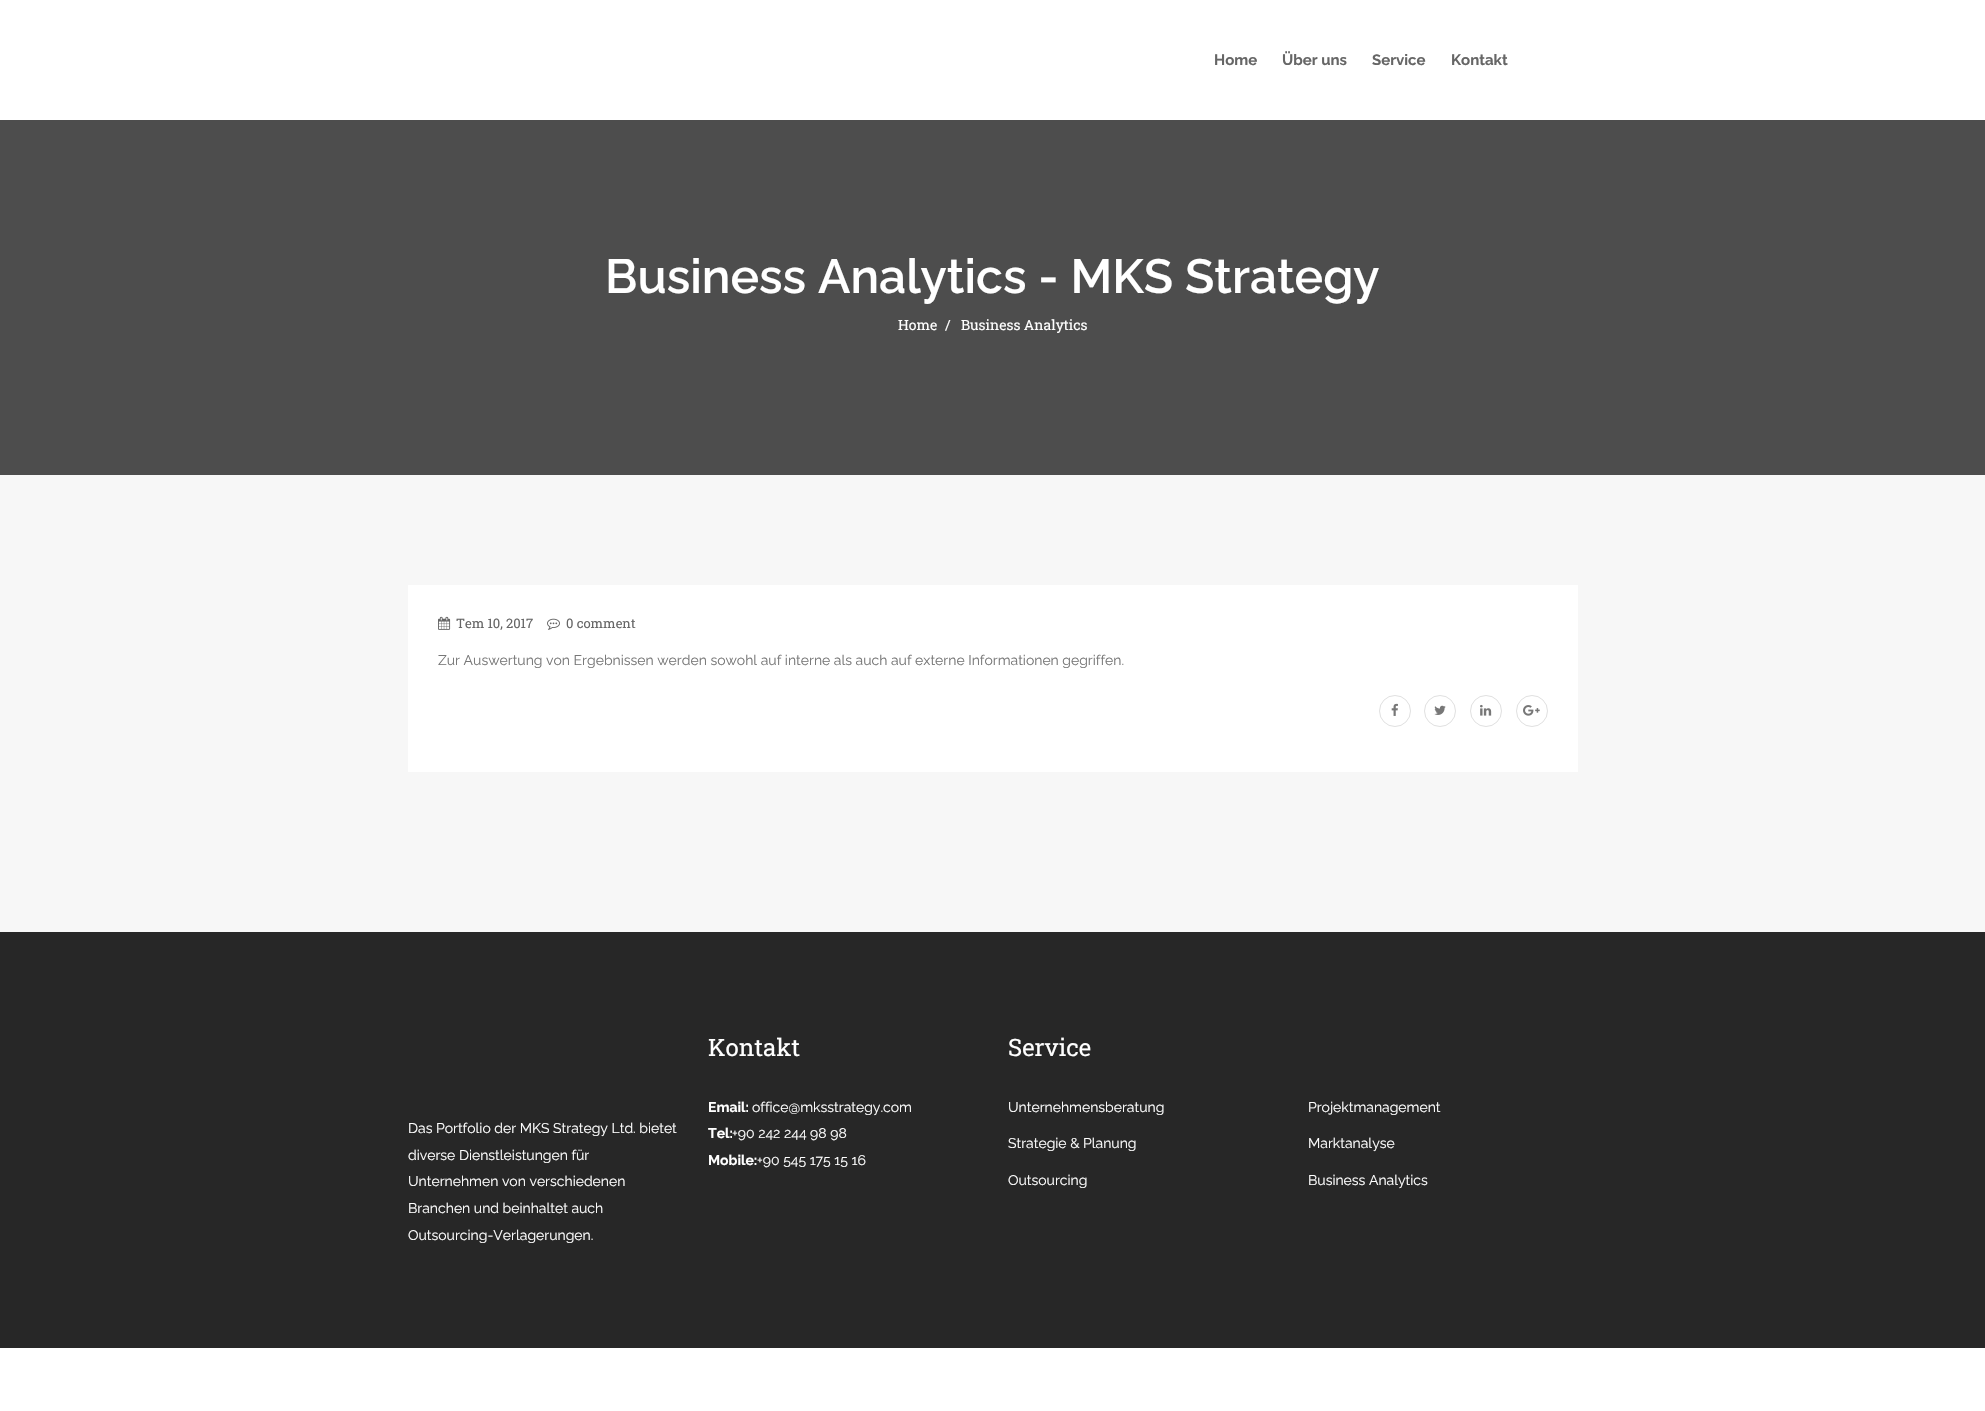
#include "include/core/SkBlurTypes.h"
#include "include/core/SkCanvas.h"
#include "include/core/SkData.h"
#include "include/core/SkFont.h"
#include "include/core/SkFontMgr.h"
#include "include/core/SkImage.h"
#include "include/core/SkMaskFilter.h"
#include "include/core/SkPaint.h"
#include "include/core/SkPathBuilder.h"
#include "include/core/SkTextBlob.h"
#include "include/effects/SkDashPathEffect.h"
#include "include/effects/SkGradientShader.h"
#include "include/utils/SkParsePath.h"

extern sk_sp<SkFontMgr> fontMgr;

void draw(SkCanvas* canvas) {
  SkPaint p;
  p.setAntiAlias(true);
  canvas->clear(SK_ColorWHITE);
  p.setColor(SkColorSetRGB(77, 77, 77));
  canvas->drawRect(SkRect::MakeLTRB(0, 120, 1985, 475), p);
  p.setColor(SkColorSetRGB(247, 247, 247));
  canvas->drawRect(SkRect::MakeLTRB(0, 475, 1985, 932), p);
  p.setColor(SK_ColorWHITE);
  canvas->drawRect(SkRect::MakeLTRB(408, 585, 1578, 772), p);
  canvas->drawImageRect(SkImages::DeferredFromEncodedData(SkData::MakeFromFileName("images/1.png")), SkRect::MakeLTRB(438, 616, 451, 630), SkSamplingOptions());
  canvas->drawImageRect(SkImages::DeferredFromEncodedData(SkData::MakeFromFileName("images/2.png")), SkRect::MakeLTRB(547, 618, 560, 630), SkSamplingOptions());
  p.setStyle(SkPaint::kStroke_Style);
  p.setStrokeWidth(1);
  p.setColor(SkColorSetRGB(224, 224, 224));
  canvas->drawCircle(1395, 711, 15.5f, p);
  canvas->drawImageRect(SkImages::DeferredFromEncodedData(SkData::MakeFromFileName("images/3.png")), SkRect::MakeLTRB(1391, 703, 1398, 716), SkSamplingOptions());
  canvas->drawCircle(1440, 711, 15.5f, p);
  canvas->drawImageRect(SkImages::DeferredFromEncodedData(SkData::MakeFromFileName("images/4.png")), SkRect::MakeLTRB(1434, 705, 1446, 715), SkSamplingOptions());
  canvas->drawCircle(1486, 711, 15.5f, p);
  canvas->drawImageRect(SkImages::DeferredFromEncodedData(SkData::MakeFromFileName("images/5.png")), SkRect::MakeLTRB(1480, 704, 1492, 716), SkSamplingOptions());
  canvas->drawCircle(1532, 711, 15.5f, p);
  canvas->drawImageRect(SkImages::DeferredFromEncodedData(SkData::MakeFromFileName("images/6.png")), SkRect::MakeLTRB(1523, 705, 1540, 716), SkSamplingOptions());
  p.setStyle(SkPaint::kFill_Style);
  p.setColor(SkColorSetRGB(39, 39, 39));
  canvas->drawRect(SkRect::MakeLTRB(0, 932, 1985, 1348), p);
  SkFont font1(fontMgr->matchFamilyStyle("Raleway", SkFontStyle::Bold()), 15);
  font1.setSubpixel(true);
  p.setColor(SkColorSetRGB(102, 102, 102));
  canvas->drawString("Home", 1214, 65, font1, p);
  canvas->drawString("Über uns", 1282, 65, font1, p);
  canvas->drawString("Service", 1372, 65, font1, p);
  canvas->drawString("Kontakt", 1451, 65, font1, p);
  SkFont font2(fontMgr->matchFamilyStyle("Raleway", SkFontStyle(600, SkFontStyle::kNormal_Width, SkFontStyle::kUpright_Slant)), 48);
  font2.setSubpixel(true);
  p.setColor(SK_ColorWHITE);
  canvas->drawString("Business Analytics - MKS Strategy", 605, 293, font2, p);
  SkFont font3(fontMgr->matchFamilyStyle("Roboto Slab", SkFontStyle::Normal()), 14);
  font3.setSubpixel(true);
  canvas->drawString("Home", 898, 330, font3, p);
  canvas->drawString("/", 945, 330, font3, p);
  canvas->drawString("Business Analytics", 961, 330, font3, p);
  SkFont font4(fontMgr->matchFamilyStyle("Roboto Slab", SkFontStyle::Normal()), 13);
  font4.setSubpixel(true);
  p.setColor(SkColorSetRGB(102, 102, 102));
  canvas->drawString("Tem 10, 2017", 456, 628, font4, p);
  canvas->drawString("0 comment", 566, 628, font4, p);
  SkFont font5(fontMgr->matchFamilyStyle("Raleway", SkFontStyle::Normal()), 14);
  font5.setSubpixel(true);
  p.setColor(SkColorSetRGB(119, 119, 119));
  canvas->drawString("Zur Auswertung von Ergebnissen werden sowohl auf interne als auch auf externe Informationen gegriffen.", 438, 665, font5, p);
  p.setColor(SK_ColorWHITE);
  canvas->drawString("Das Portfolio der MKS Strategy Ltd. bietet", 408, 1133, font5, p);
  canvas->drawString("diverse Dienstleistungen für", 408, 1160, font5, p);
  canvas->drawString("Unternehmen von verschiedenen", 408, 1186, font5, p);
  canvas->drawString("Branchen und beinhaltet auch", 408, 1213, font5, p);
  canvas->drawString("Outsourcing-Verlagerungen.", 408, 1240, font5, p);
  SkFont font6(fontMgr->matchFamilyStyle("Roboto Slab", SkFontStyle::Normal()), 24);
  font6.setSubpixel(true);
  canvas->drawString("Kontakt", 708, 1056, font6, p);
  SkFont font7(fontMgr->matchFamilyStyle("Raleway", SkFontStyle::Bold()), 14);
  font7.setSubpixel(true);
  canvas->drawString("Email:", 708, 1112, font7, p);
  canvas->drawString("office@mksstrategy.com", 752, 1112, font5, p);
  canvas->drawString("Tel:", 708, 1138, font7, p);
  canvas->drawString("+90 242 244 98 98", 732, 1138, font5, p);
  canvas->drawString("Mobile:", 708, 1165, font7, p);
  canvas->drawString("+90 545 175 15 16", 757, 1165, font5, p);
  canvas->drawString("Service", 1008, 1056, font6, p);
  canvas->drawString("Unternehmensberatung", 1008, 1112, font5, p);
  canvas->drawString("Strategie & Planung", 1008, 1148, font5, p);
  canvas->drawString("Outsourcing", 1008, 1185, font5, p);
  canvas->drawString("Projektmanagement", 1308, 1112, font5, p);
  canvas->drawString("Marktanalyse", 1308, 1148, font5, p);
  canvas->drawString("Business Analytics", 1308, 1185, font5, p);
}
